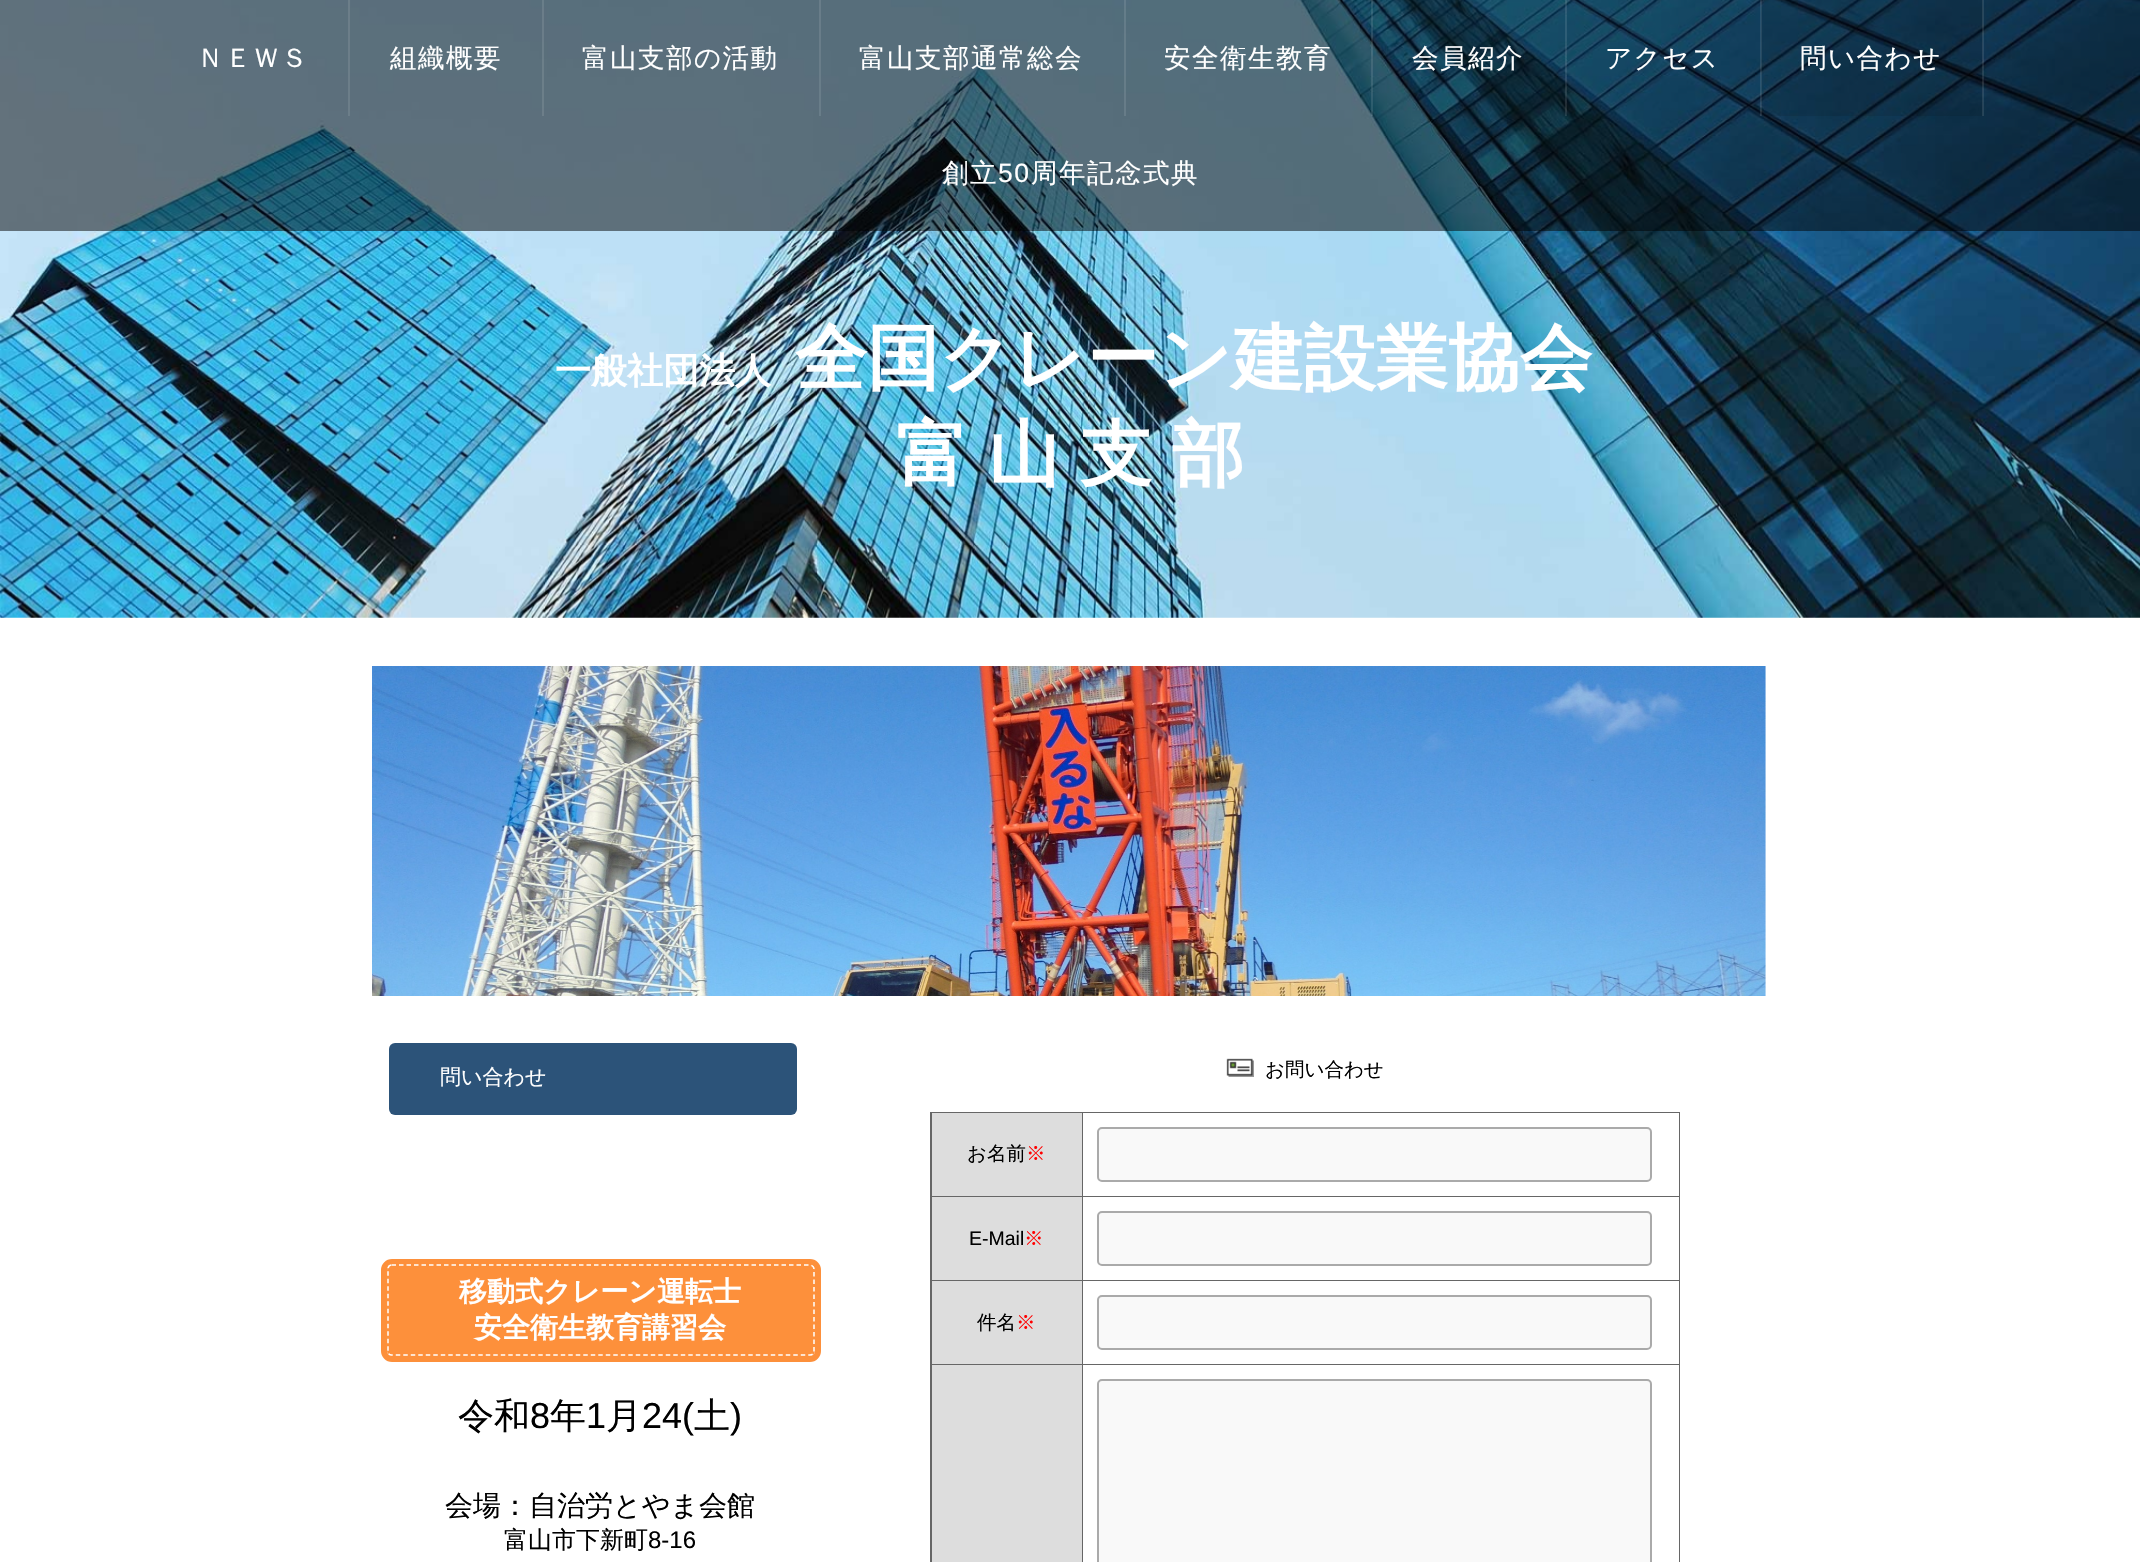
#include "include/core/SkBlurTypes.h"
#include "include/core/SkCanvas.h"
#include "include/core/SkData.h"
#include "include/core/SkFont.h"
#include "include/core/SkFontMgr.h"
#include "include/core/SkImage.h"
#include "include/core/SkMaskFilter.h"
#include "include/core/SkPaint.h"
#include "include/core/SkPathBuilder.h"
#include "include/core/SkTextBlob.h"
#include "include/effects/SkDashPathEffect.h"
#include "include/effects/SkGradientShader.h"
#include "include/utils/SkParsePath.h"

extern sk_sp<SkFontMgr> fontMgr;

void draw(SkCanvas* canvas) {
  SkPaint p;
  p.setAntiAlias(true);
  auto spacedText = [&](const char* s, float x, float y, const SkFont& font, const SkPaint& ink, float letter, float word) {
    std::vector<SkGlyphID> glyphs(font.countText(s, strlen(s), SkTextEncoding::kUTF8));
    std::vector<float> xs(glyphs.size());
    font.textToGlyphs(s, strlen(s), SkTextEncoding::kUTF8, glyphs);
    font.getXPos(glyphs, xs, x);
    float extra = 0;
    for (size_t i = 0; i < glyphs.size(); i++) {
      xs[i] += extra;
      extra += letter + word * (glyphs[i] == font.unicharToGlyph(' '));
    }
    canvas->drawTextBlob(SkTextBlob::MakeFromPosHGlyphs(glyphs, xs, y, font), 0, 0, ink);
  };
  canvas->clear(SK_ColorWHITE);
  canvas->drawImageRect(SkImages::DeferredFromEncodedData(SkData::MakeFromFileName("images/1.png")), SkRect::MakeLTRB(0, 0, 2140, 618), SkSamplingOptions());
  p.setColor(SkColorSetARGB(128, 0, 0, 0));
  canvas->drawRect(SkRect::MakeLTRB(0, 0, 2140, 231), p);
  p.setColor(SkColorSetRGB(108, 126, 137));
  canvas->drawRect(SkRect::MakeLTRB(348, 0, 350, 116), p);
  p.setColor(SkColorSetARGB(26, 255, 255, 255));
  canvas->drawRect(SkRect::MakeLTRB(542, 0, 544, 116), p);
  p.setColor(SkColorSetRGB(105, 125, 137));
  canvas->drawRect(SkRect::MakeLTRB(819, 0, 821, 116), p);
  p.setColor(SkColorSetARGB(26, 255, 255, 255));
  canvas->drawRect(SkRect::MakeLTRB(1124, 0, 1126, 116), p);
  canvas->drawRect(SkRect::MakeLTRB(1371, 0, 1373, 116), p);
  canvas->drawRect(SkRect::MakeLTRB(1565, 0, 1567, 116), p);
  canvas->drawRect(SkRect::MakeLTRB(1760, 0, 1762, 116), p);
  p.setColor(SkColorSetARGB(26, 0, 0, 0));
  canvas->drawRect(SkRect::MakeLTRB(1761, 0, 1983, 116), p);
  p.setColor(SkColorSetARGB(26, 255, 255, 255));
  canvas->drawRect(SkRect::MakeLTRB(1982, 0, 1984, 116), p);
  canvas->drawImageRect(SkImages::DeferredFromEncodedData(SkData::MakeFromFileName("images/2.png")), SkRect::MakeLTRB(372, 666, 1766, 996), SkSamplingOptions());
  p.setColor(SkColorSetRGB(44, 83, 121));
  canvas->drawRoundRect(SkRect::MakeLTRB(389, 1043, 797, 1115), 6, 6, p);
  p.setStyle(SkPaint::kStroke_Style);
  p.setStrokeWidth(6);
  p.setColor(SkColorSetRGB(253, 144, 59));
  canvas->drawRoundRect(SkRect::MakeLTRB(384, 1262, 818, 1359), 8, 8, p);
  p.setStyle(SkPaint::kFill_Style);
  canvas->drawRoundRect(SkRect::MakeLTRB(387, 1265, 815, 1356), 5, 5, p);
  p.setStyle(SkPaint::kStroke_Style);
  p.setStrokeWidth(1.5f);
  p.setColor(SK_ColorWHITE);
  p.setPathEffect(SkDashPathEffect::Make({{4.5f, 3}}, 0));
  canvas->drawPath(SkPathBuilder().moveTo(391.5f, 1265).lineTo(810, 1265).cubicTo(812, 1265, 814, 1267, 814, 1269).lineTo(814, 1351.5f).cubicTo(814, 1353.5f, 812, 1355, 810, 1355).lineTo(391.5f, 1355).cubicTo(389.5f, 1355, 388, 1353.5f, 388, 1351.5f).lineTo(388, 1269).cubicTo(388, 1267, 389.5f, 1265, 391.5f, 1265).close().detach(), p);
  p.setPathEffect(nullptr);
  canvas->drawImageRect(SkImages::DeferredFromEncodedData(SkData::MakeFromFileName("images/3.png")), SkRect::MakeLTRB(1226, 1058, 1254, 1077), SkSamplingOptions());
  p.setStyle(SkPaint::kFill_Style);
  p.setColor(SkColorSetRGB(102, 102, 102));
  canvas->drawRect(SkRect::MakeLTRB(930, 1112, 1680, 1562), p);
  p.setColor(SkColorSetRGB(221, 221, 221));
  canvas->drawRect(SkRect::MakeLTRB(932, 1113, 1082, 1196), p);
  p.setColor(SK_ColorWHITE);
  canvas->drawRect(SkRect::MakeLTRB(1083, 1113, 1679, 1196), p);
  p.setColor(SkColorSetRGB(249, 249, 249));
  canvas->drawRoundRect(SkRect::MakeLTRB(1098, 1128, 1651, 1181), 4, 4, p);
  p.setStyle(SkPaint::kStroke_Style);
  p.setStrokeWidth(2);
  p.setColor(SkColorSetRGB(170, 170, 170));
  canvas->drawRoundRect(SkRect::MakeLTRB(1098, 1128, 1651, 1181), 4, 4, p);
  p.setStyle(SkPaint::kFill_Style);
  p.setColor(SkColorSetRGB(221, 221, 221));
  canvas->drawRect(SkRect::MakeLTRB(932, 1197, 1082, 1280), p);
  p.setColor(SK_ColorWHITE);
  canvas->drawRect(SkRect::MakeLTRB(1083, 1197, 1679, 1280), p);
  p.setColor(SkColorSetRGB(249, 249, 249));
  canvas->drawRoundRect(SkRect::MakeLTRB(1098, 1212, 1651, 1265), 4, 4, p);
  p.setStyle(SkPaint::kStroke_Style);
  p.setColor(SkColorSetRGB(170, 170, 170));
  canvas->drawRoundRect(SkRect::MakeLTRB(1098, 1212, 1651, 1265), 4, 4, p);
  p.setStyle(SkPaint::kFill_Style);
  p.setColor(SkColorSetRGB(221, 221, 221));
  canvas->drawRect(SkRect::MakeLTRB(932, 1281, 1082, 1364), p);
  p.setColor(SK_ColorWHITE);
  canvas->drawRect(SkRect::MakeLTRB(1083, 1281, 1679, 1364), p);
  p.setColor(SkColorSetRGB(249, 249, 249));
  canvas->drawRoundRect(SkRect::MakeLTRB(1098, 1296, 1651, 1349), 4, 4, p);
  p.setStyle(SkPaint::kStroke_Style);
  p.setColor(SkColorSetRGB(170, 170, 170));
  canvas->drawRoundRect(SkRect::MakeLTRB(1098, 1296, 1651, 1349), 4, 4, p);
  p.setStyle(SkPaint::kFill_Style);
  p.setColor(SkColorSetRGB(221, 221, 221));
  canvas->drawRect(SkRect::MakeLTRB(932, 1365, 1082, 1562), p);
  p.setColor(SK_ColorWHITE);
  canvas->drawRect(SkRect::MakeLTRB(1083, 1365, 1679, 1562), p);
  p.setColor(SkColorSetRGB(249, 249, 249));
  canvas->drawRoundRect(SkRect::MakeLTRB(1098, 1380, 1651, 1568), 4, 4, p);
  p.setStyle(SkPaint::kStroke_Style);
  p.setColor(SkColorSetRGB(170, 170, 170));
  canvas->drawRoundRect(SkRect::MakeLTRB(1098, 1380, 1651, 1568), 4, 4, p);
  SkFont font1(fontMgr->matchFamilyStyle("WenQuanYi Zen Hei", SkFontStyle(500, SkFontStyle::kNormal_Width, SkFontStyle::kUpright_Slant)), 26.5f);
  font1.setSubpixel(true);
  p.setStyle(SkPaint::kFill_Style);
  p.setColor(SK_ColorWHITE);
  spacedText("ＮＥＷＳ", 197, 67, font1, p, 1.5f, 0);
  spacedText("組織概要", 390, 67, font1, p, 1.5f, 0);
  spacedText("富山支部の活動", 582, 67, font1, p, 1.5f, 0);
  spacedText("富山支部通常総会", 859, 67, font1, p, 1.5f, 0);
  spacedText("安全衛生教育", 1164, 67, font1, p, 1.5f, 0);
  spacedText("会員紹介", 1412, 67, font1, p, 1.5f, 0);
  spacedText("アクセス", 1605, 67, font1, p, 1.5f, 0);
  spacedText("問い合わせ", 1800, 67, font1, p, 1.5f, 0);
  spacedText("創立", 942, 182, font1, p, 1.5f, 0);
  SkFont font2(fontMgr->matchFamilyStyle("Liberation Sans", SkFontStyle::Normal()), 26.5f);
  font2.setSubpixel(true);
  spacedText("50", 998, 182, font2, p, 1.5f, 0);
  spacedText("周年記念式典", 1031, 182, font1, p, 1.5f, 0);
  SkFont font3(fontMgr->matchFamilyStyle("WenQuanYi Zen Hei", SkFontStyle::Bold()), 36);
  font3.setSubpixel(true);
  canvas->drawString("一般社団法人", 555, 383, font3, p);
  SkFont font4(fontMgr->matchFamilyStyle("WenQuanYi Zen Hei", SkFontStyle::Bold()), 72);
  font4.setSubpixel(true);
  canvas->drawString("全国クレーン建設業協会", 795, 383, font4, p);
  spacedText("富 山 支 部", 896, 479, font4, p, 0, -1.5f);
  SkFont font5(fontMgr->matchFamilyStyle("WenQuanYi Zen Hei", SkFontStyle(500, SkFontStyle::kNormal_Width, SkFontStyle::kUpright_Slant)), 21);
  font5.setSubpixel(true);
  canvas->drawString("問い合わせ", 440, 1084, font5, p);
  SkFont font6(fontMgr->matchFamilyStyle("WenQuanYi Zen Hei", SkFontStyle::Bold()), 28);
  font6.setSubpixel(true);
  canvas->drawString("移動式クレーン運転士", 459, 1301, font6, p);
  canvas->drawString("安全衛生教育講習会", 474, 1337, font6, p);
  SkFont font7(fontMgr->matchFamilyStyle("WenQuanYi Zen Hei", SkFontStyle(500, SkFontStyle::kNormal_Width, SkFontStyle::kUpright_Slant)), 36);
  font7.setSubpixel(true);
  p.setColor(SK_ColorBLACK);
  canvas->drawString("令和", 458, 1428, font7, p);
  SkFont font8(fontMgr->matchFamilyStyle("Liberation Sans", SkFontStyle::Normal()), 36);
  font8.setSubpixel(true);
  canvas->drawString("8", 530, 1428, font8, p);
  canvas->drawString("年", 550, 1428, font7, p);
  canvas->drawString("1", 586, 1428, font8, p);
  canvas->drawString("月", 606, 1428, font7, p);
  canvas->drawString("24(", 642, 1428, font8, p);
  canvas->drawString("土", 694, 1428, font7, p);
  canvas->drawString(")", 730, 1428, font8, p);
  SkFont font9(fontMgr->matchFamilyStyle("WenQuanYi Zen Hei", SkFontStyle(500, SkFontStyle::kNormal_Width, SkFontStyle::kUpright_Slant)), 28);
  font9.setSubpixel(true);
  canvas->drawString("会場：自治労とやま会館", 445, 1515, font9, p);
  SkFont font10(fontMgr->matchFamilyStyle("WenQuanYi Zen Hei", SkFontStyle(500, SkFontStyle::kNormal_Width, SkFontStyle::kUpright_Slant)), 24);
  font10.setSubpixel(true);
  canvas->drawString("富山市下新町", 504, 1548, font10, p);
  SkFont font11(fontMgr->matchFamilyStyle("Liberation Sans", SkFontStyle::Normal()), 24);
  font11.setSubpixel(true);
  canvas->drawString("8-16", 648, 1548, font11, p);
  SkFont font12(fontMgr->matchFamilyStyle("WenQuanYi Zen Hei", SkFontStyle(500, SkFontStyle::kNormal_Width, SkFontStyle::kUpright_Slant)), 19.5f);
  font12.setSubpixel(true);
  canvas->drawString("お問い合わせ", 1265, 1076, font12, p);
  canvas->drawString("お名前", 967, 1160, font12, p);
  p.setColor(SkColorSetRGB(255, 0, 0));
  canvas->drawString("※", 1026, 1160, font12, p);
  SkFont font13(fontMgr->matchFamilyStyle("Liberation Sans", SkFontStyle::Normal()), 19.5f);
  font13.setSubpixel(true);
  p.setColor(SK_ColorBLACK);
  canvas->drawString("E-Mail", 969, 1245, font13, p);
  p.setColor(SkColorSetRGB(255, 0, 0));
  canvas->drawString("※", 1024, 1245, font12, p);
  p.setColor(SK_ColorBLACK);
  canvas->drawString("件名", 977, 1329, font12, p);
  p.setColor(SkColorSetRGB(255, 0, 0));
  canvas->drawString("※", 1016, 1329, font12, p);
}
